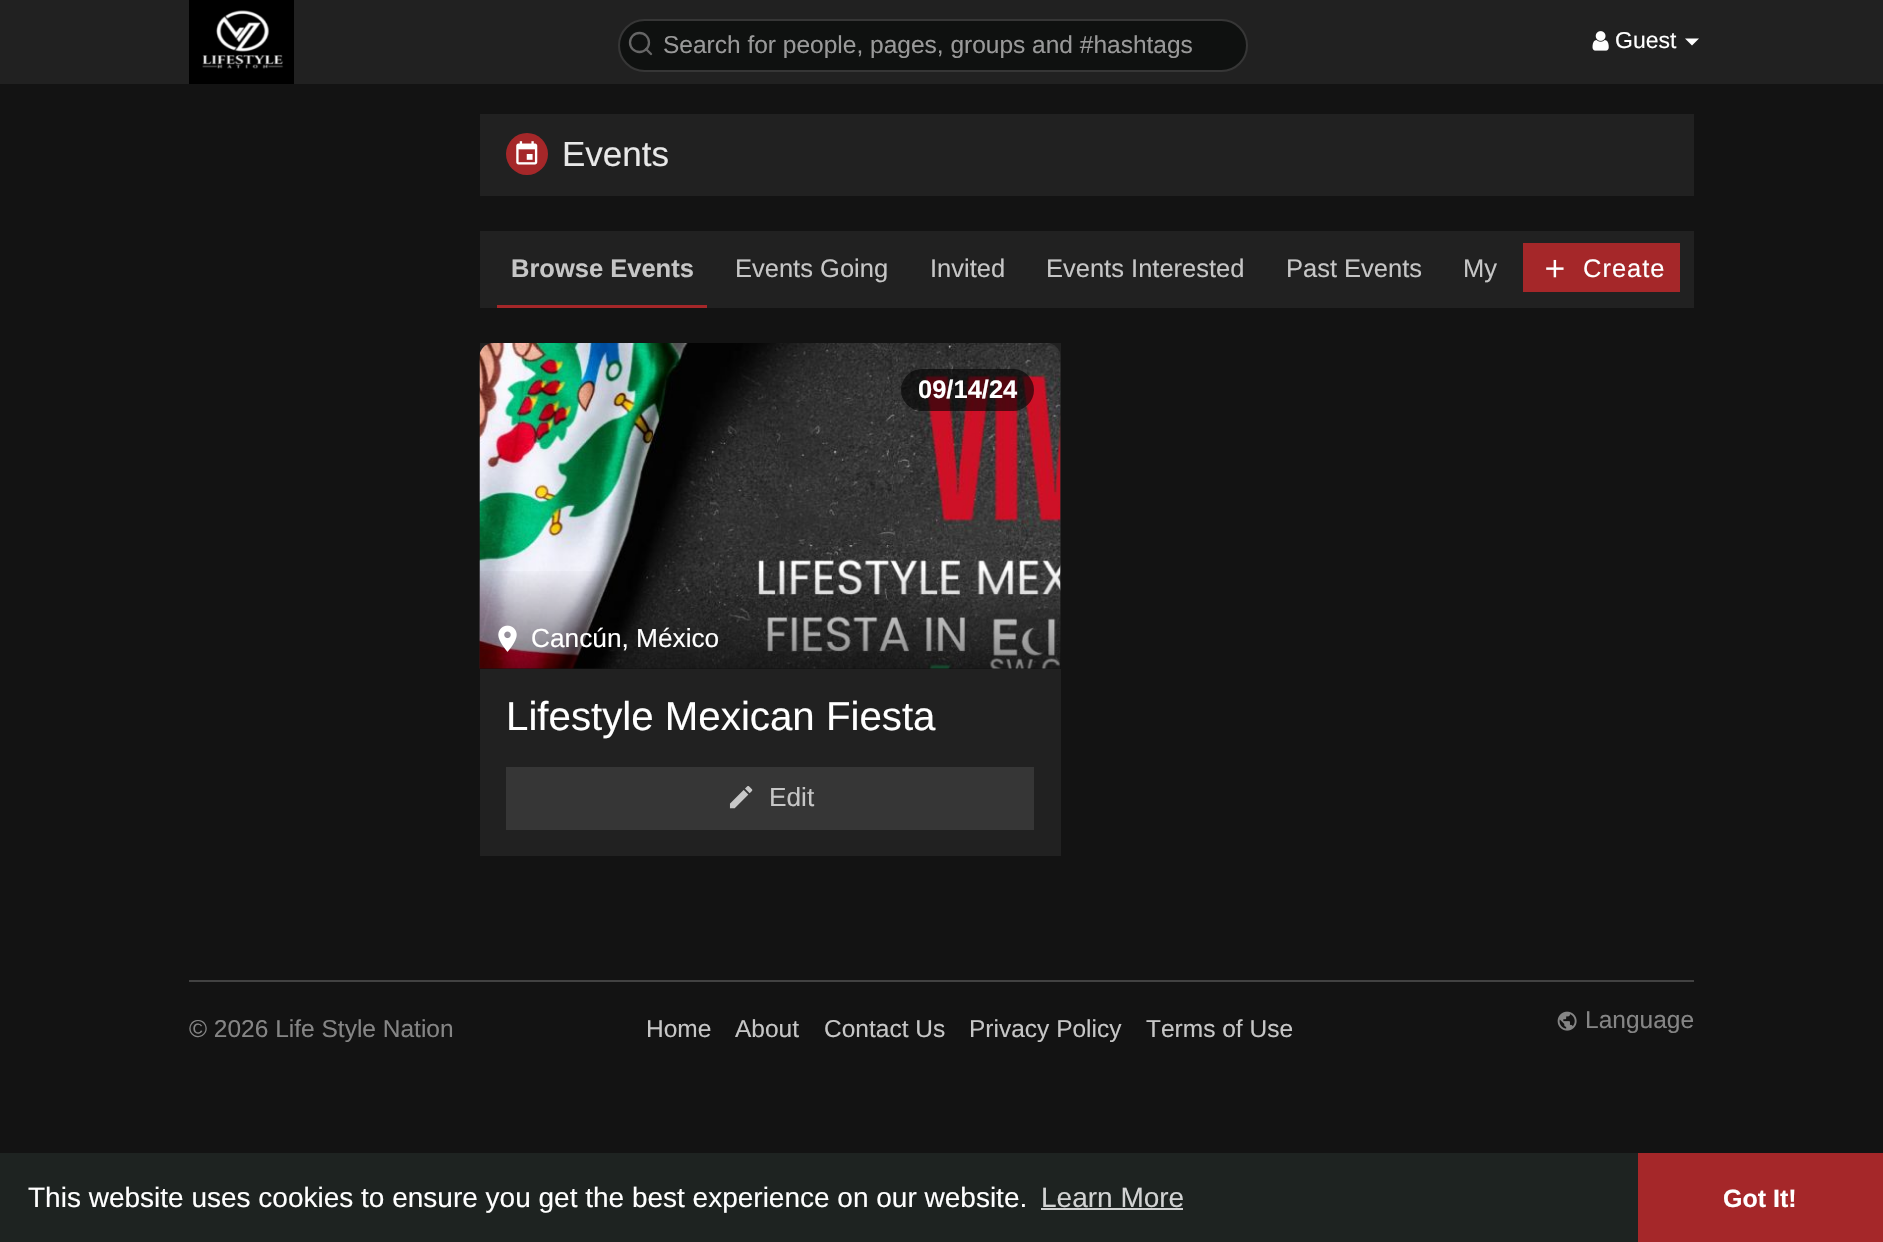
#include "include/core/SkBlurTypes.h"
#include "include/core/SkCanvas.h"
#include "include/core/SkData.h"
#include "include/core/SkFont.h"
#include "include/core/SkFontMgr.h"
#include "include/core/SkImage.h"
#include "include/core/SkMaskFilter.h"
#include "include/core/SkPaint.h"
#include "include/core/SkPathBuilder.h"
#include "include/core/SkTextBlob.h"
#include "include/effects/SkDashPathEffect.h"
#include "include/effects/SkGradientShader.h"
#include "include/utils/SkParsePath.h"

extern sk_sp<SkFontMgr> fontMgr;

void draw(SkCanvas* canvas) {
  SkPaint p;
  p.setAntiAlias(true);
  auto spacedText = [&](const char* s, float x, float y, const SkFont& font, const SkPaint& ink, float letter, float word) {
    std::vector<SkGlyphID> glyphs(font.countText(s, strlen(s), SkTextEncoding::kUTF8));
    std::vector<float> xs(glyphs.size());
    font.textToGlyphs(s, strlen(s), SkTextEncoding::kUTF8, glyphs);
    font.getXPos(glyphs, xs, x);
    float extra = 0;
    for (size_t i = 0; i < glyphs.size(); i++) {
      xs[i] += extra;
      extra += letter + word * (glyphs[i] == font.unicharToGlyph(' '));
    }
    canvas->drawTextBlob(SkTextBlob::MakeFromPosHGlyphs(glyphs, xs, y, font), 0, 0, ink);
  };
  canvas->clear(SkColorSetRGB(19, 19, 19));
  p.setColor(SkColorSetRGB(33, 33, 33));
  canvas->drawRect(SkRect::MakeLTRB(0, 0, 1883, 84), p);
  canvas->drawImageRect(SkImages::DeferredFromEncodedData(SkData::MakeFromFileName("images/1.png")), SkRect::MakeLTRB(189, 0, 294, 84), SkSamplingOptions());
  p.setColor(SkColorSetRGB(15, 17, 16));
  canvas->drawRoundRect(SkRect::MakeLTRB(619, 20, 1247, 71), 25.5f, 25.5f, p);
  p.setStyle(SkPaint::kStroke_Style);
  p.setStrokeWidth(2);
  p.setColor(SkColorSetRGB(54, 54, 54));
  canvas->drawRoundRect(SkRect::MakeLTRB(619, 20, 1247, 71), 25.5f, 25.5f, p);
  p.setStrokeWidth(2.3f);
  p.setColor(SkColorSetRGB(102, 102, 102));
  canvas->drawCircle(639.5f, 42.5f, 9.5f, p);
  p.setStrokeCap(SkPaint::kRound_Cap);
  p.setStrokeJoin(SkPaint::kRound_Join);
  canvas->drawPath(SkPathBuilder().moveTo(651, 54).lineTo(646, 49).detach(), p);
  canvas->drawImageRect(SkImages::DeferredFromEncodedData(SkData::MakeFromFileName("images/2.png")), SkRect::MakeLTRB(1592, 31, 1609, 51), SkSamplingOptions());
  p.setStyle(SkPaint::kFill_Style);
  p.setColor(SK_ColorWHITE);
  canvas->drawPath(SkPathBuilder().moveTo(1685, 38.5f).lineTo(1699, 38.5f).lineTo(1692, 45.5f).close().detach(), p);
  p.setColor(SkColorSetRGB(33, 33, 33));
  canvas->drawRect(SkRect::MakeLTRB(480, 114, 1694, 196), p);
  p.setColor(SkColorSetRGB(165, 39, 41));
  canvas->drawCircle(527, 154, 21, p);
  canvas->drawImageRect(SkImages::DeferredFromEncodedData(SkData::MakeFromFileName("images/3.png")), SkRect::MakeLTRB(516, 141, 538, 165), SkSamplingOptions());
  p.setColor(SkColorSetRGB(33, 33, 33));
  canvas->drawRect(SkRect::MakeLTRB(480, 231, 1694, 308), p);
  p.setColor(SkColorSetRGB(165, 39, 41));
  canvas->drawRect(SkRect::MakeLTRB(497, 305, 707, 308), p);
  canvas->drawRect(SkRect::MakeLTRB(1523, 243, 1680, 292), p);
  canvas->drawImageRect(SkImages::DeferredFromEncodedData(SkData::MakeFromFileName("images/4.png")), SkRect::MakeLTRB(1546, 259, 1564, 278), SkSamplingOptions());
  p.setColor(SkColorSetRGB(33, 33, 33));
  canvas->drawRect(SkRect::MakeLTRB(480, 343, 1061, 856), p);
  canvas->drawImageRect(SkImages::DeferredFromEncodedData(SkData::MakeFromFileName("images/5.png")), SkRect::MakeLTRB(479, 343, 1061, 669), SkSamplingOptions());
  p.setColor(SkColorSetARGB(153, 0, 0, 0));
  canvas->drawRoundRect(SkRect::MakeLTRB(901, 369, 1034, 411), 21, 21, p);
  {
    const SkColor colors[] = {SkColorSetARGB(128, 0, 0, 0), SkColorSetARGB(0, 0, 0, 0)};
    const float stops[] = {0, 1};
    const SkPoint ends[] = {{770, 669}, {770, 567}};
    p.setShader(SkGradientShader::MakeLinear(ends, colors, stops, 2, SkTileMode::kClamp));
    p.setAlpha(255);
  }
  canvas->drawRect(SkRect::MakeLTRB(480, 571, 1061, 669), p);
  canvas->drawImageRect(SkImages::DeferredFromEncodedData(SkData::MakeFromFileName("images/6.png")), SkRect::MakeLTRB(498, 625, 517, 652), SkSamplingOptions());
  p.setShader(nullptr);
  p.setColor(SkColorSetRGB(54, 54, 54));
  canvas->drawRect(SkRect::MakeLTRB(506, 767, 1034, 830), p);
  canvas->drawImageRect(SkImages::DeferredFromEncodedData(SkData::MakeFromFileName("images/7.png")), SkRect::MakeLTRB(729, 786, 753, 809), SkSamplingOptions());
  p.setColor(SkColorSetRGB(66, 66, 66));
  canvas->drawRect(SkRect::MakeLTRB(189, 980, 1694, 982), p);
  canvas->drawImageRect(SkImages::DeferredFromEncodedData(SkData::MakeFromFileName("images/8.png")), SkRect::MakeLTRB(1557, 1011, 1577, 1031), SkSamplingOptions());
  p.setColor(SkColorSetRGB(30, 35, 33));
  canvas->drawRect(SkRect::MakeLTRB(0, 1153, 1638, 1242), p);
  p.setColor(SkColorSetRGB(210, 211, 211));
  canvas->drawRect(SkRect::MakeLTRB(1041, 1208, 1183, 1210), p);
  p.setColor(SkColorSetRGB(165, 39, 41));
  canvas->drawRect(SkRect::MakeLTRB(1638, 1153, 1883, 1242), p);
  SkFont font1(fontMgr->matchFamilyStyle("Liberation Sans", SkFontStyle::Normal()), 24.5f);
  font1.setSubpixel(true);
  p.setColor(SkColorSetRGB(153, 153, 153));
  canvas->drawString("Search for people, pages, groups and #hashtags", 663, 53, font1, p);
  SkFont font2(fontMgr->matchFamilyStyle("Liberation Sans", SkFontStyle::Normal()), 23);
  font2.setSubpixel(true);
  p.setColor(SK_ColorWHITE);
  canvas->drawString("Guest", 1615, 48, font2, p);
  SkFont font3(fontMgr->matchFamilyStyle("Liberation Sans", SkFontStyle::Normal()), 35);
  font3.setSubpixel(true);
  p.setColor(SkColorSetRGB(232, 232, 232));
  canvas->drawString("Events", 562, 166, font3, p);
  SkFont font4(fontMgr->matchFamilyStyle("Liberation Sans", SkFontStyle::Bold()), 25.5f);
  font4.setSubpixel(true);
  p.setColor(SkColorSetRGB(198, 198, 198));
  canvas->drawString("Browse Events", 511, 277, font4, p);
  SkFont font5(fontMgr->matchFamilyStyle("Liberation Sans", SkFontStyle::Normal()), 25.5f);
  font5.setSubpixel(true);
  canvas->drawString("Events Going", 735, 277, font5, p);
  canvas->drawString("Invited", 930, 277, font5, p);
  canvas->drawString("Events Interested", 1046, 277, font5, p);
  canvas->drawString("Past Events", 1286, 277, font5, p);
  canvas->drawString("My", 1463, 277, font5, p);
  p.setColor(SK_ColorWHITE);
  spacedText("Create", 1583, 277, font5, p, 1, 0);
  canvas->drawString("09/14/24", 918, 398, font4, p);
  SkFont font6(fontMgr->matchFamilyStyle("Liberation Sans", SkFontStyle::Normal()), 26.25f);
  font6.setSubpixel(true);
  canvas->drawString("Cancún, México", 531, 647, font6, p);
  SkFont font7(fontMgr->matchFamilyStyle("Liberation Sans", SkFontStyle::Normal()), 40.25f);
  font7.setSubpixel(true);
  canvas->drawString("Lifestyle Mexican Fiesta", 506, 730, font7, p);
  p.setColor(SkColorSetRGB(198, 198, 198));
  canvas->drawString("Edit", 769, 806, font6, p);
  p.setColor(SkColorSetRGB(133, 133, 133));
  canvas->drawString("© 2026 Life Style Nation", 189, 1037, font1, p);
  p.setColor(SkColorSetRGB(198, 198, 198));
  canvas->drawString("Home", 646, 1037, font1, p);
  canvas->drawString("About", 735, 1037, font1, p);
  canvas->drawString("Contact Us", 824, 1037, font1, p);
  canvas->drawString("Privacy Policy", 969, 1037, font1, p);
  canvas->drawString("Terms of Use", 1146, 1037, font1, p);
  p.setColor(SkColorSetRGB(133, 133, 133));
  canvas->drawString("Language", 1585, 1028, font1, p);
  SkFont font8(fontMgr->matchFamilyStyle("Liberation Sans", SkFontStyle::Normal()), 28);
  font8.setSubpixel(true);
  p.setColor(SK_ColorWHITE);
  canvas->drawString("This website uses cookies to ensure you get the best experience on our website.", 28, 1207, font8, p);
  p.setColor(SkColorSetRGB(210, 211, 211));
  canvas->drawString("Learn More", 1041, 1207, font8, p);
  SkFont font9(fontMgr->matchFamilyStyle("Liberation Sans", SkFontStyle::Bold()), 25);
  font9.setSubpixel(true);
  p.setColor(SK_ColorWHITE);
  canvas->drawString("Got It!", 1723, 1207, font9, p);
}
